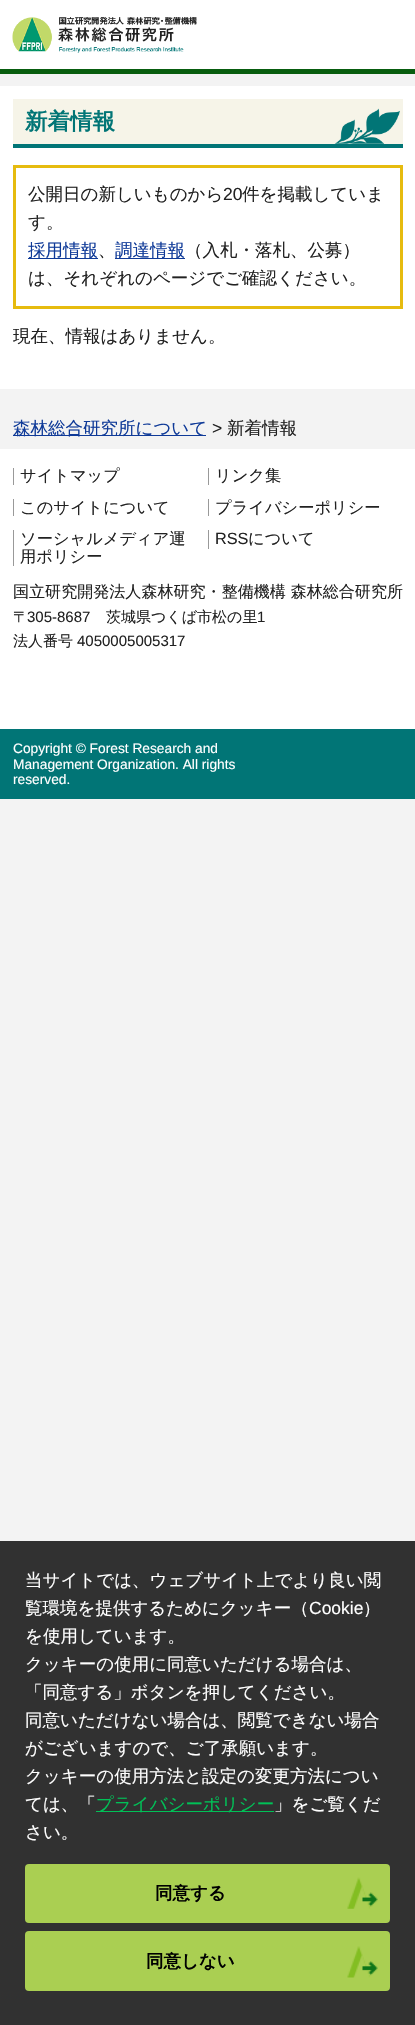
#include "include/core/SkBlurTypes.h"
#include "include/core/SkCanvas.h"
#include "include/core/SkData.h"
#include "include/core/SkFont.h"
#include "include/core/SkFontMgr.h"
#include "include/core/SkImage.h"
#include "include/core/SkMaskFilter.h"
#include "include/core/SkPaint.h"
#include "include/core/SkPathBuilder.h"
#include "include/core/SkTextBlob.h"
#include "include/effects/SkDashPathEffect.h"
#include "include/effects/SkGradientShader.h"
#include "include/utils/SkParsePath.h"

extern sk_sp<SkFontMgr> fontMgr;

void draw(SkCanvas* canvas) {
  SkPaint p;
  p.setAntiAlias(true);
  canvas->clear(SkColorSetRGB(243, 243, 243));
  p.setColor(SK_ColorWHITE);
  canvas->drawRect(SkRect::MakeLTRB(0, 0, 415, 69), p);
  p.setColor(SkColorSetRGB(8, 93, 15));
  canvas->drawRect(SkRect::MakeLTRB(0, 69, 415, 74), p);
  canvas->drawImageRect(SkImages::DeferredFromEncodedData(SkData::MakeFromFileName("images/1.png")), SkRect::MakeLTRB(12, 16, 197, 53), SkSamplingOptions());
  p.setColor(SK_ColorWHITE);
  canvas->drawRect(SkRect::MakeLTRB(0, 86, 415, 389), p);
  p.setColor(SkColorSetRGB(246, 244, 232));
  canvas->drawRect(SkRect::MakeLTRB(13, 99, 403, 144), p);
  canvas->drawImageRect(SkImages::DeferredFromEncodedData(SkData::MakeFromFileName("images/2.png")), SkRect::MakeLTRB(334, 108, 400, 144), SkSamplingOptions());
  p.setColor(SkColorSetRGB(1, 117, 118));
  canvas->drawRect(SkRect::MakeLTRB(13, 144, 403, 148), p);
  p.setStyle(SkPaint::kStroke_Style);
  p.setStrokeWidth(3);
  p.setColor(SkColorSetRGB(230, 187, 15));
  canvas->drawRect(SkRect::MakeLTRB(14.5f, 166.5f, 401.5f, 307.5f), p);
  p.setStyle(SkPaint::kFill_Style);
  p.setColor(SkColorSetRGB(15, 58, 152));
  canvas->drawRect(SkRect::MakeLTRB(28, 258, 98, 259), p);
  canvas->drawRect(SkRect::MakeLTRB(115, 258, 185, 259), p);
  canvas->drawRect(SkRect::MakeLTRB(13, 435, 206, 436), p);
  p.setColor(SK_ColorWHITE);
  canvas->drawRect(SkRect::MakeLTRB(0, 449, 415, 729), p);
  p.setColor(SkColorSetRGB(153, 153, 153));
  canvas->drawRect(SkRect::MakeLTRB(13, 468, 14, 485), p);
  canvas->drawRect(SkRect::MakeLTRB(208, 468, 209, 485), p);
  canvas->drawRect(SkRect::MakeLTRB(13, 499, 14, 516), p);
  canvas->drawRect(SkRect::MakeLTRB(208, 499, 209, 516), p);
  canvas->drawRect(SkRect::MakeLTRB(13, 530, 14, 566), p);
  canvas->drawRect(SkRect::MakeLTRB(208, 530, 209, 549), p);
  p.setColor(SkColorSetRGB(1, 117, 118));
  canvas->drawRect(SkRect::MakeLTRB(0, 729, 415, 799), p);
  p.setColor(SkColorSetRGB(49, 49, 49));
  canvas->drawRect(SkRect::MakeLTRB(0, 1541, 415, 2025), p);
  p.setColor(SkColorSetRGB(0, 193, 87));
  canvas->drawRect(SkRect::MakeLTRB(96, 1811, 274, 1812), p);
  p.setColor(SkColorSetRGB(170, 207, 82));
  canvas->drawRoundRect(SkRect::MakeLTRB(25, 1864, 390, 1923), 4, 4, p);
  canvas->drawImageRect(SkImages::DeferredFromEncodedData(SkData::MakeFromFileName("images/3.png")), SkRect::MakeLTRB(347, 1877, 378, 1909), SkSamplingOptions());
  canvas->drawRoundRect(SkRect::MakeLTRB(25, 1931, 390, 1991), 4, 4, p);
  canvas->drawImageRect(SkImages::DeferredFromEncodedData(SkData::MakeFromFileName("images/4.png")), SkRect::MakeLTRB(347, 1946, 378, 1978), SkSamplingOptions());
  SkFont font1(fontMgr->matchFamilyStyle("WenQuanYi Zen Hei", SkFontStyle::Bold()), 22.5f);
  font1.setSubpixel(true);
  p.setColor(SkColorSetRGB(1, 117, 118));
  canvas->drawString("新着情報", 25, 129, font1, p);
  SkFont font2(fontMgr->matchFamilyStyle("WenQuanYi Zen Hei", SkFontStyle(500, SkFontStyle::kNormal_Width, SkFontStyle::kUpright_Slant)), 17.5f);
  font2.setSubpixel(true);
  p.setColor(SkColorSetRGB(34, 34, 34));
  canvas->drawString("公開日の新しいものから", 28, 200, font2, p);
  SkFont font3(fontMgr->matchFamilyStyle("Liberation Sans", SkFontStyle::Normal()), 17.5f);
  font3.setSubpixel(true);
  canvas->drawString("20", 223, 200, font3, p);
  canvas->drawString("件を掲載していま", 242, 200, font2, p);
  canvas->drawString("す。", 28, 228, font2, p);
  p.setColor(SkColorSetRGB(15, 58, 152));
  canvas->drawString("採用情報", 28, 256, font2, p);
  p.setColor(SkColorSetRGB(34, 34, 34));
  canvas->drawString("、", 98, 256, font2, p);
  p.setColor(SkColorSetRGB(15, 58, 152));
  canvas->drawString("調達情報", 115, 256, font2, p);
  p.setColor(SkColorSetRGB(34, 34, 34));
  canvas->drawString("（入札・落札、公募）", 185, 256, font2, p);
  canvas->drawString("は、それぞれのページでご確認ください。", 28, 284, font2, p);
  canvas->drawString("現在、情報はありません。", 13, 342, font2, p);
  p.setColor(SkColorSetRGB(15, 58, 152));
  canvas->drawString("森林総合研究所について", 13, 434, font2, p);
  p.setColor(SkColorSetRGB(34, 34, 34));
  canvas->drawString(">", 212, 434, font3, p);
  canvas->drawString("新着情報", 227, 434, font2, p);
  SkFont font4(fontMgr->matchFamilyStyle("WenQuanYi Zen Hei", SkFontStyle(500, SkFontStyle::kNormal_Width, SkFontStyle::kUpright_Slant)), 16.25f);
  font4.setSubpixel(true);
  canvas->drawString("サイトマップ", 20, 481, font4, p);
  canvas->drawString("リンク集", 215, 481, font4, p);
  canvas->drawString("このサイトについて", 20, 513, font4, p);
  canvas->drawString("プライバシーポリシー", 215, 513, font4, p);
  canvas->drawString("ソーシャルメディア運", 20, 544, font4, p);
  canvas->drawString("用ポリシー", 20, 562, font4, p);
  SkFont font5(fontMgr->matchFamilyStyle("Liberation Sans", SkFontStyle::Normal()), 16.25f);
  font5.setSubpixel(true);
  canvas->drawString("RSS", 215, 544, font5, p);
  canvas->drawString("について", 248, 544, font4, p);
  SkFont font6(fontMgr->matchFamilyStyle("WenQuanYi Zen Hei", SkFontStyle(500, SkFontStyle::kNormal_Width, SkFontStyle::kUpright_Slant)), 16.05f);
  font6.setSubpixel(true);
  canvas->drawString("国立研究開発法人森林研究・整備機構 森林総合研究所", 13, 597, font6, p);
  SkFont font7(fontMgr->matchFamilyStyle("WenQuanYi Zen Hei", SkFontStyle(500, SkFontStyle::kNormal_Width, SkFontStyle::kUpright_Slant)), 15);
  font7.setSubpixel(true);
  canvas->drawString("〒", 13, 622, font7, p);
  SkFont font8(fontMgr->matchFamilyStyle("Liberation Sans", SkFontStyle::Normal()), 15);
  font8.setSubpixel(true);
  canvas->drawString("305-8687", 27, 622, font8, p);
  canvas->drawString("茨城県つくば市松の里", 106, 622, font7, p);
  canvas->drawString("1", 257, 622, font8, p);
  canvas->drawString("法人番号", 13, 646, font7, p);
  canvas->drawString("4050005005317", 77, 646, font8, p);
  SkFont font9(fontMgr->matchFamilyStyle("Liberation Sans", SkFontStyle::Normal()), 13.75f);
  font9.setSubpixel(true);
  p.setColor(SK_ColorWHITE);
  canvas->drawString("Copyright © Forest Research and", 13, 753, font9, p);
  canvas->drawString("Management Organization. All rights", 13, 769, font9, p);
  canvas->drawString("reserved.", 13, 784, font9, p);
  canvas->drawString("当サイトでは、ウェブサイト上でより良い閲", 25, 1586, font2, p);
  canvas->drawString("覧環境を提供するためにクッキー（", 25, 1614, font2, p);
  canvas->drawString("Cookie", 309, 1614, font3, p);
  canvas->drawString("）", 363, 1614, font2, p);
  canvas->drawString("を使用しています。", 25, 1642, font2, p);
  canvas->drawString("クッキーの使用に同意いただける場合は、", 25, 1670, font2, p);
  canvas->drawString("「同意する」ボタンを押してください。", 25, 1698, font2, p);
  canvas->drawString("同意いただけない場合は、閲覧できない場合", 25, 1726, font2, p);
  canvas->drawString("がございますので、ご了承願います。", 25, 1754, font2, p);
  canvas->drawString("クッキーの使用方法と設定の変更方法につい", 25, 1782, font2, p);
  canvas->drawString("ては、「", 25, 1810, font2, p);
  p.setColor(SkColorSetRGB(0, 193, 87));
  canvas->drawString("プライバシーポリシー", 96, 1810, font2, p);
  p.setColor(SK_ColorWHITE);
  canvas->drawString("」をご覧くだ", 274, 1810, font2, p);
  canvas->drawString("さい。", 25, 1838, font2, p);
  SkFont font10(fontMgr->matchFamilyStyle("WenQuanYi Zen Hei", SkFontStyle::Bold()), 17.5f);
  font10.setSubpixel(true);
  p.setColor(SK_ColorBLACK);
  canvas->drawString("同意する", 155, 1899, font10, p);
  canvas->drawString("同意しない", 146, 1967, font10, p);
}
